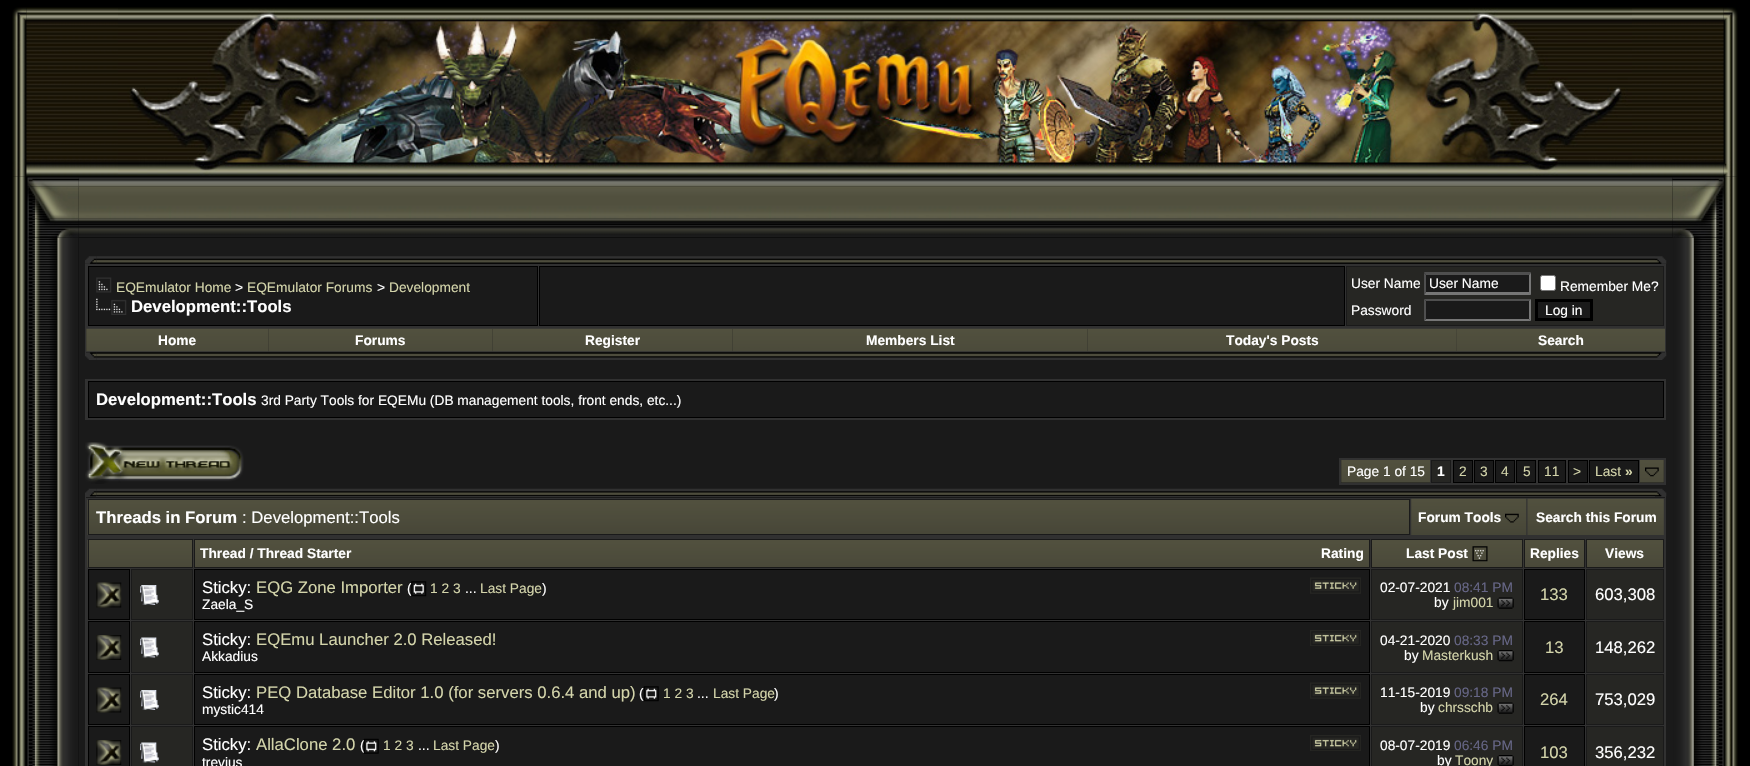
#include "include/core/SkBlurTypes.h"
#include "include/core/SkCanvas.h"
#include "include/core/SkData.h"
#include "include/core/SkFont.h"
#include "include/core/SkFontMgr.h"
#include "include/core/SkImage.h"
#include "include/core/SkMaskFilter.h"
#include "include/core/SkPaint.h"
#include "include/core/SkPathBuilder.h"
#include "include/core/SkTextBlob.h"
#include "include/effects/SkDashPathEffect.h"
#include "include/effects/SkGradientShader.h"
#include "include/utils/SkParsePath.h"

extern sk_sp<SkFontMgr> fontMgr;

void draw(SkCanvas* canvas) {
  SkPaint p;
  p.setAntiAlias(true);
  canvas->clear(SK_ColorBLACK);
  canvas->drawImageRect(SkImages::DeferredFromEncodedData(SkData::MakeFromFileName("images/2.png")), SkRect::MakeLTRB(26, 7, 1724, 177), SkSamplingOptions());
  canvas->drawImageRect(SkImages::DeferredFromEncodedData(SkData::MakeFromFileName("images/5.png")), SkRect::MakeLTRB(12, 176, 26, 766), SkSamplingOptions());
  canvas->drawImageRect(SkImages::DeferredFromEncodedData(SkData::MakeFromFileName("images/1.png")), SkRect::MakeLTRB(12, 7, 27, 177), SkSamplingOptions());
  canvas->drawImageRect(SkImages::DeferredFromEncodedData(SkData::MakeFromFileName("images/3.png")), SkRect::MakeLTRB(118, 8, 1632, 176), SkSamplingOptions());
  canvas->drawImageRect(SkImages::DeferredFromEncodedData(SkData::MakeFromFileName("images/7.png")), SkRect::MakeLTRB(78, 177, 1673, 187), SkSamplingOptions());
  canvas->drawImageRect(SkImages::DeferredFromEncodedData(SkData::MakeFromFileName("images/10.png")), SkRect::MakeLTRB(78, 186, 1673, 219), SkSamplingOptions());
  canvas->drawImageRect(SkImages::DeferredFromEncodedData(SkData::MakeFromFileName("images/13.png")), SkRect::MakeLTRB(78, 218, 1673, 238), SkSamplingOptions());
  p.setColor(SkColorSetRGB(26, 26, 26));
  canvas->drawRect(SkRect::MakeLTRB(79, 238, 1673, 766), p);
  canvas->drawImageRect(SkImages::DeferredFromEncodedData(SkData::MakeFromFileName("images/62.png")), SkRect::MakeLTRB(1672, 237, 1724, 766), SkSamplingOptions());
  canvas->drawImageRect(SkImages::DeferredFromEncodedData(SkData::MakeFromFileName("images/63.png")), SkRect::MakeLTRB(1723, 176, 1738, 766), SkSamplingOptions());
  canvas->drawImageRect(SkImages::DeferredFromEncodedData(SkData::MakeFromFileName("images/4.png")), SkRect::MakeLTRB(1723, 7, 1738, 177), SkSamplingOptions());
  canvas->drawImageRect(SkImages::DeferredFromEncodedData(SkData::MakeFromFileName("images/6.png")), SkRect::MakeLTRB(27, 177, 79, 187), SkSamplingOptions());
  canvas->drawImageRect(SkImages::DeferredFromEncodedData(SkData::MakeFromFileName("images/8.png")), SkRect::MakeLTRB(1672, 177, 1724, 187), SkSamplingOptions());
  canvas->drawImageRect(SkImages::DeferredFromEncodedData(SkData::MakeFromFileName("images/9.png")), SkRect::MakeLTRB(27, 186, 79, 219), SkSamplingOptions());
  canvas->drawImageRect(SkImages::DeferredFromEncodedData(SkData::MakeFromFileName("images/11.png")), SkRect::MakeLTRB(1672, 186, 1724, 219), SkSamplingOptions());
  canvas->drawImageRect(SkImages::DeferredFromEncodedData(SkData::MakeFromFileName("images/15.png")), SkRect::MakeLTRB(27, 237, 79, 766), SkSamplingOptions());
  canvas->drawImageRect(SkImages::DeferredFromEncodedData(SkData::MakeFromFileName("images/12.png")), SkRect::MakeLTRB(27, 218, 79, 238), SkSamplingOptions());
  canvas->drawImageRect(SkImages::DeferredFromEncodedData(SkData::MakeFromFileName("images/14.png")), SkRect::MakeLTRB(1672, 218, 1724, 238), SkSamplingOptions());
  canvas->drawImageRect(SkImages::DeferredFromEncodedData(SkData::MakeFromFileName("images/16.png")), SkRect::MakeLTRB(85, 256, 96, 264), SkSamplingOptions());
  canvas->drawImageRect(SkImages::DeferredFromEncodedData(SkData::MakeFromFileName("images/17.png")), SkRect::MakeLTRB(96, 256, 1655, 264), SkSamplingOptions());
  canvas->drawImageRect(SkImages::DeferredFromEncodedData(SkData::MakeFromFileName("images/18.png")), SkRect::MakeLTRB(1655, 256, 1667, 264), SkSamplingOptions());
  p.setColor(SkColorSetRGB(49, 49, 49));
  canvas->drawRect(SkRect::MakeLTRB(85, 264, 1666, 329), p);
  p.setColor(SkColorSetRGB(26, 26, 26));
  canvas->drawRect(SkRect::MakeLTRB(88.5f, 266.5f, 537.5f, 325.5f), p);
  p.setStyle(SkPaint::kStroke_Style);
  p.setStrokeWidth(1);
  p.setColor(SK_ColorBLACK);
  canvas->drawRect(SkRect::MakeLTRB(88.5f, 266.5f, 537.5f, 325.5f), p);
  canvas->drawImageRect(SkImages::DeferredFromEncodedData(SkData::MakeFromFileName("images/19.png")), SkRect::MakeLTRB(96, 277, 112, 293), SkSamplingOptions());
  canvas->drawImageRect(SkImages::DeferredFromEncodedData(SkData::MakeFromFileName("images/20.png")), SkRect::MakeLTRB(96, 298, 127, 315), SkSamplingOptions());
  p.setStyle(SkPaint::kFill_Style);
  p.setColor(SkColorSetRGB(26, 26, 26));
  canvas->drawRect(SkRect::MakeLTRB(539.5f, 266.5f, 1344.5f, 325.5f), p);
  p.setStyle(SkPaint::kStroke_Style);
  p.setColor(SK_ColorBLACK);
  canvas->drawRect(SkRect::MakeLTRB(539.5f, 266.5f, 1344.5f, 325.5f), p);
  p.setStyle(SkPaint::kFill_Style);
  p.setColor(SkColorSetRGB(38, 38, 35));
  canvas->drawRect(SkRect::MakeLTRB(1346.5f, 266.5f, 1663.5f, 325.5f), p);
  p.setStyle(SkPaint::kStroke_Style);
  p.setColor(SkColorSetRGB(26, 26, 26));
  canvas->drawRect(SkRect::MakeLTRB(1346.5f, 266.5f, 1663.5f, 325.5f), p);
  p.setStyle(SkPaint::kFill_Style);
  canvas->drawRect(SkRect::MakeLTRB(1424, 273, 1531, 295), p);
  p.setColor(SkColorSetRGB(79, 79, 79));
  canvas->drawPath(SkPathBuilder().moveTo(1424, 272).lineTo(1531, 272).lineTo(1529, 275).lineTo(1426, 275).close().detach(), p);
  p.setColor(SkColorSetRGB(118, 118, 118));
  canvas->drawPath(SkPathBuilder().moveTo(1531, 272.5f).lineTo(1531, 295).lineTo(1529, 292.5f).lineTo(1529, 275).close().detach(), p);
  canvas->drawPath(SkPathBuilder().moveTo(1531, 295).lineTo(1424, 295).lineTo(1426, 292).lineTo(1529, 292).close().detach(), p);
  p.setColor(SkColorSetRGB(79, 79, 79));
  canvas->drawPath(SkPathBuilder().moveTo(1424, 295).lineTo(1424, 272.5f).lineTo(1426, 275).lineTo(1426, 292.5f).close().detach(), p);
  p.setColor(SK_ColorWHITE);
  canvas->drawRoundRect(SkRect::MakeLTRB(1540.5f, 275.5f, 1555.5f, 290.5f), 2, 2, p);
  p.setStyle(SkPaint::kStroke_Style);
  p.setColor(SkColorSetRGB(118, 118, 118));
  canvas->drawRoundRect(SkRect::MakeLTRB(1540.5f, 275.5f, 1555.5f, 290.5f), 2, 2, p);
  p.setStyle(SkPaint::kFill_Style);
  p.setColor(SkColorSetRGB(26, 26, 26));
  canvas->drawRect(SkRect::MakeLTRB(1424, 299, 1531, 321), p);
  p.setColor(SkColorSetRGB(79, 79, 79));
  canvas->drawPath(SkPathBuilder().moveTo(1424, 299).lineTo(1531, 299).lineTo(1529, 301).lineTo(1426, 301).close().detach(), p);
  p.setColor(SkColorSetRGB(118, 118, 118));
  canvas->drawPath(SkPathBuilder().moveTo(1531, 299).lineTo(1531, 321).lineTo(1529, 319).lineTo(1529, 301).close().detach(), p);
  canvas->drawPath(SkPathBuilder().moveTo(1531, 321).lineTo(1424, 321).lineTo(1426, 319).lineTo(1529, 319).close().detach(), p);
  p.setColor(SkColorSetRGB(79, 79, 79));
  canvas->drawPath(SkPathBuilder().moveTo(1424, 321).lineTo(1424, 299).lineTo(1426, 301).lineTo(1426, 319).close().detach(), p);
  p.setColor(SkColorSetRGB(26, 26, 26));
  canvas->drawRect(SkRect::MakeLTRB(1536.5f, 300.5f, 1591.5f, 319.5f), p);
  p.setStyle(SkPaint::kStroke_Style);
  p.setStrokeWidth(3);
  p.setColor(SK_ColorBLACK);
  canvas->drawRect(SkRect::MakeLTRB(1536.5f, 300.5f, 1591.5f, 319.5f), p);
  p.setStyle(SkPaint::kFill_Style);
  p.setColor(SkColorSetRGB(49, 49, 49));
  canvas->drawRect(SkRect::MakeLTRB(1665, 329, 1666, 353), p);
  canvas->drawRect(SkRect::MakeLTRB(85, 351, 1666, 352), p);
  canvas->drawRect(SkRect::MakeLTRB(85, 329, 86, 353), p);
  canvas->drawImageRect(SkImages::DeferredFromEncodedData(SkData::MakeFromFileName("images/21.png")), SkRect::MakeLTRB(86, 328, 269, 352), SkSamplingOptions());
  canvas->drawImageRect(SkImages::DeferredFromEncodedData(SkData::MakeFromFileName("images/22.png")), SkRect::MakeLTRB(269, 328, 493, 352), SkSamplingOptions());
  canvas->drawImageRect(SkImages::DeferredFromEncodedData(SkData::MakeFromFileName("images/23.png")), SkRect::MakeLTRB(492, 328, 733, 352), SkSamplingOptions());
  canvas->drawImageRect(SkImages::DeferredFromEncodedData(SkData::MakeFromFileName("images/24.png")), SkRect::MakeLTRB(732, 328, 1088, 352), SkSamplingOptions());
  canvas->drawImageRect(SkImages::DeferredFromEncodedData(SkData::MakeFromFileName("images/25.png")), SkRect::MakeLTRB(1087, 328, 1457, 352), SkSamplingOptions());
  canvas->drawImageRect(SkImages::DeferredFromEncodedData(SkData::MakeFromFileName("images/26.png")), SkRect::MakeLTRB(1456, 328, 1665, 352), SkSamplingOptions());
  canvas->drawImageRect(SkImages::DeferredFromEncodedData(SkData::MakeFromFileName("images/27.png")), SkRect::MakeLTRB(85, 352, 96, 360), SkSamplingOptions());
  canvas->drawImageRect(SkImages::DeferredFromEncodedData(SkData::MakeFromFileName("images/28.png")), SkRect::MakeLTRB(96, 352, 1655, 360), SkSamplingOptions());
  canvas->drawImageRect(SkImages::DeferredFromEncodedData(SkData::MakeFromFileName("images/29.png")), SkRect::MakeLTRB(1655, 352, 1667, 360), SkSamplingOptions());
  canvas->drawRect(SkRect::MakeLTRB(85, 379, 1666, 420), p);
  p.setColor(SkColorSetRGB(26, 26, 26));
  canvas->drawRect(SkRect::MakeLTRB(88.5f, 381.5f, 1663.5f, 417.5f), p);
  p.setStyle(SkPaint::kStroke_Style);
  p.setStrokeWidth(1);
  p.setColor(SK_ColorBLACK);
  canvas->drawRect(SkRect::MakeLTRB(88.5f, 381.5f, 1663.5f, 417.5f), p);
  canvas->drawImageRect(SkImages::DeferredFromEncodedData(SkData::MakeFromFileName("images/30.png")), SkRect::MakeLTRB(85, 442, 244, 484), SkSamplingOptions());
  p.setStyle(SkPaint::kFill_Style);
  p.setColor(SkColorSetRGB(49, 49, 49));
  canvas->drawRect(SkRect::MakeLTRB(1339, 458, 1666, 485), p);
  p.setColor(SkColorSetRGB(26, 26, 26));
  canvas->drawRect(SkRect::MakeLTRB(1341, 460, 1430, 483), p);
  canvas->drawImageRect(SkImages::DeferredFromEncodedData(SkData::MakeFromFileName("images/31.png")), SkRect::MakeLTRB(1341, 460, 1430, 483), SkSamplingOptions());
  p.setColor(SkColorSetRGB(38, 38, 35));
  canvas->drawRect(SkRect::MakeLTRB(1431.5f, 460.5f, 1450.5f, 482.5f), p);
  p.setStyle(SkPaint::kStroke_Style);
  p.setColor(SkColorSetRGB(26, 26, 26));
  canvas->drawRect(SkRect::MakeLTRB(1431.5f, 460.5f, 1450.5f, 482.5f), p);
  p.setStyle(SkPaint::kFill_Style);
  canvas->drawRect(SkRect::MakeLTRB(1453.5f, 460.5f, 1472.5f, 482.5f), p);
  p.setStyle(SkPaint::kStroke_Style);
  p.setColor(SK_ColorBLACK);
  canvas->drawRect(SkRect::MakeLTRB(1453.5f, 460.5f, 1472.5f, 482.5f), p);
  p.setStyle(SkPaint::kFill_Style);
  p.setColor(SkColorSetRGB(26, 26, 26));
  canvas->drawRect(SkRect::MakeLTRB(1474.5f, 460.5f, 1493.5f, 482.5f), p);
  p.setStyle(SkPaint::kStroke_Style);
  p.setColor(SK_ColorBLACK);
  canvas->drawRect(SkRect::MakeLTRB(1474.5f, 460.5f, 1493.5f, 482.5f), p);
  p.setStyle(SkPaint::kFill_Style);
  p.setColor(SkColorSetRGB(26, 26, 26));
  canvas->drawRect(SkRect::MakeLTRB(1495.5f, 460.5f, 1514.5f, 482.5f), p);
  p.setStyle(SkPaint::kStroke_Style);
  p.setColor(SK_ColorBLACK);
  canvas->drawRect(SkRect::MakeLTRB(1495.5f, 460.5f, 1514.5f, 482.5f), p);
  p.setStyle(SkPaint::kFill_Style);
  p.setColor(SkColorSetRGB(26, 26, 26));
  canvas->drawRect(SkRect::MakeLTRB(1516.5f, 460.5f, 1535.5f, 482.5f), p);
  p.setStyle(SkPaint::kStroke_Style);
  p.setColor(SK_ColorBLACK);
  canvas->drawRect(SkRect::MakeLTRB(1516.5f, 460.5f, 1535.5f, 482.5f), p);
  p.setStyle(SkPaint::kFill_Style);
  p.setColor(SkColorSetRGB(26, 26, 26));
  canvas->drawRect(SkRect::MakeLTRB(1538.5f, 460.5f, 1565.5f, 482.5f), p);
  p.setStyle(SkPaint::kStroke_Style);
  p.setColor(SK_ColorBLACK);
  canvas->drawRect(SkRect::MakeLTRB(1538.5f, 460.5f, 1565.5f, 482.5f), p);
  p.setStyle(SkPaint::kFill_Style);
  p.setColor(SkColorSetRGB(26, 26, 26));
  canvas->drawRect(SkRect::MakeLTRB(1568.5f, 460.5f, 1587.5f, 482.5f), p);
  p.setStyle(SkPaint::kStroke_Style);
  p.setColor(SK_ColorBLACK);
  canvas->drawRect(SkRect::MakeLTRB(1568.5f, 460.5f, 1587.5f, 482.5f), p);
  p.setStyle(SkPaint::kFill_Style);
  p.setColor(SkColorSetRGB(26, 26, 26));
  canvas->drawRect(SkRect::MakeLTRB(1589.5f, 460.5f, 1638.5f, 482.5f), p);
  p.setStyle(SkPaint::kStroke_Style);
  p.setColor(SK_ColorBLACK);
  canvas->drawRect(SkRect::MakeLTRB(1589.5f, 460.5f, 1638.5f, 482.5f), p);
  p.setStyle(SkPaint::kFill_Style);
  p.setColor(SkColorSetRGB(26, 26, 26));
  canvas->drawRect(SkRect::MakeLTRB(1640, 460, 1664, 483), p);
  canvas->drawImageRect(SkImages::DeferredFromEncodedData(SkData::MakeFromFileName("images/32.png")), SkRect::MakeLTRB(1640, 460, 1664, 483), SkSamplingOptions());
  canvas->drawImageRect(SkImages::DeferredFromEncodedData(SkData::MakeFromFileName("images/33.png")), SkRect::MakeLTRB(1645, 467, 1659, 477), SkSamplingOptions());
  p.setColor(SkColorSetRGB(49, 49, 49));
  canvas->drawRect(SkRect::MakeLTRB(85, 496, 1666, 497), p);
  canvas->drawRect(SkRect::MakeLTRB(85, 496, 86, 536), p);
  canvas->drawImageRect(SkImages::DeferredFromEncodedData(SkData::MakeFromFileName("images/34.png")), SkRect::MakeLTRB(85, 488, 96, 497), SkSamplingOptions());
  canvas->drawImageRect(SkImages::DeferredFromEncodedData(SkData::MakeFromFileName("images/35.png")), SkRect::MakeLTRB(96, 488, 1655, 496), SkSamplingOptions());
  canvas->drawRect(SkRect::MakeLTRB(1665, 496, 1666, 536), p);
  canvas->drawImageRect(SkImages::DeferredFromEncodedData(SkData::MakeFromFileName("images/36.png")), SkRect::MakeLTRB(1655, 488, 1667, 497), SkSamplingOptions());
  canvas->drawRect(SkRect::MakeLTRB(86, 498, 1665, 536), p);
  canvas->drawImageRect(SkImages::DeferredFromEncodedData(SkData::MakeFromFileName("images/37.png")), SkRect::MakeLTRB(87, 500, 1409, 535), SkSamplingOptions());
  p.setStyle(SkPaint::kStroke_Style);
  p.setColor(SkColorSetRGB(26, 26, 26));
  canvas->drawRect(SkRect::MakeLTRB(88.5f, 499.5f, 1409.5f, 534.5f), p);
  canvas->drawImageRect(SkImages::DeferredFromEncodedData(SkData::MakeFromFileName("images/38.png")), SkRect::MakeLTRB(1411, 498, 1527, 535), SkSamplingOptions());
  canvas->drawImageRect(SkImages::DeferredFromEncodedData(SkData::MakeFromFileName("images/39.png")), SkRect::MakeLTRB(1505, 513, 1519, 523), SkSamplingOptions());
  canvas->drawImageRect(SkImages::DeferredFromEncodedData(SkData::MakeFromFileName("images/40.png")), SkRect::MakeLTRB(1527, 498, 1664, 535), SkSamplingOptions());
  p.setStyle(SkPaint::kFill_Style);
  p.setColor(SkColorSetRGB(49, 49, 49));
  canvas->drawRect(SkRect::MakeLTRB(85, 536, 1666, 766), p);
  canvas->drawImageRect(SkImages::DeferredFromEncodedData(SkData::MakeFromFileName("images/41.png")), SkRect::MakeLTRB(87, 540, 192, 568), SkSamplingOptions());
  p.setStyle(SkPaint::kStroke_Style);
  p.setColor(SkColorSetRGB(26, 26, 26));
  canvas->drawRect(SkRect::MakeLTRB(88.5f, 539.5f, 192.5f, 567.5f), p);
  canvas->drawImageRect(SkImages::DeferredFromEncodedData(SkData::MakeFromFileName("images/42.png")), SkRect::MakeLTRB(193, 540, 1369, 568), SkSamplingOptions());
  canvas->drawRect(SkRect::MakeLTRB(194.5f, 539.5f, 1369.5f, 567.5f), p);
  canvas->drawImageRect(SkImages::DeferredFromEncodedData(SkData::MakeFromFileName("images/43.png")), SkRect::MakeLTRB(1372, 540, 1522, 567), SkSamplingOptions());
  canvas->drawRect(SkRect::MakeLTRB(1371.5f, 539.5f, 1522.5f, 567.5f), p);
  canvas->drawImageRect(SkImages::DeferredFromEncodedData(SkData::MakeFromFileName("images/44.png")), SkRect::MakeLTRB(1472, 546, 1488, 562), SkSamplingOptions());
  canvas->drawImageRect(SkImages::DeferredFromEncodedData(SkData::MakeFromFileName("images/45.png")), SkRect::MakeLTRB(1523, 540, 1584, 568), SkSamplingOptions());
  canvas->drawRect(SkRect::MakeLTRB(1524.5f, 539.5f, 1584.5f, 567.5f), p);
  canvas->drawImageRect(SkImages::DeferredFromEncodedData(SkData::MakeFromFileName("images/46.png")), SkRect::MakeLTRB(1587, 540, 1663, 567), SkSamplingOptions());
  canvas->drawRect(SkRect::MakeLTRB(1586.5f, 539.5f, 1663.5f, 567.5f), p);
  p.setStyle(SkPaint::kFill_Style);
  canvas->drawRect(SkRect::MakeLTRB(88.5f, 569.5f, 129.5f, 619.5f), p);
  p.setStyle(SkPaint::kStroke_Style);
  p.setColor(SK_ColorBLACK);
  canvas->drawRect(SkRect::MakeLTRB(88.5f, 569.5f, 129.5f, 619.5f), p);
  canvas->drawImageRect(SkImages::DeferredFromEncodedData(SkData::MakeFromFileName("images/47.png")), SkRect::MakeLTRB(96, 582, 122, 608), SkSamplingOptions());
  p.setStyle(SkPaint::kFill_Style);
  p.setColor(SkColorSetRGB(38, 38, 35));
  canvas->drawRect(SkRect::MakeLTRB(131.5f, 569.5f, 192.5f, 619.5f), p);
  p.setStyle(SkPaint::kStroke_Style);
  p.setColor(SkColorSetRGB(26, 26, 26));
  canvas->drawRect(SkRect::MakeLTRB(131.5f, 569.5f, 192.5f, 619.5f), p);
  canvas->drawImageRect(SkImages::DeferredFromEncodedData(SkData::MakeFromFileName("images/48.png")), SkRect::MakeLTRB(140, 585, 159, 605), SkSamplingOptions());
  p.setStyle(SkPaint::kFill_Style);
  canvas->drawRect(SkRect::MakeLTRB(194.5f, 569.5f, 1369.5f, 619.5f), p);
  p.setStyle(SkPaint::kStroke_Style);
  p.setColor(SK_ColorBLACK);
  canvas->drawRect(SkRect::MakeLTRB(194.5f, 569.5f, 1369.5f, 619.5f), p);
  canvas->drawImageRect(SkImages::DeferredFromEncodedData(SkData::MakeFromFileName("images/50.png")), SkRect::MakeLTRB(1310, 577, 1361, 594), SkSamplingOptions());
  p.setStyle(SkPaint::kFill_Style);
  p.setColor(SkColorSetRGB(38, 38, 35));
  canvas->drawRect(SkRect::MakeLTRB(1371.5f, 569.5f, 1522.5f, 619.5f), p);
  p.setStyle(SkPaint::kStroke_Style);
  p.setColor(SkColorSetRGB(26, 26, 26));
  canvas->drawRect(SkRect::MakeLTRB(1371.5f, 569.5f, 1522.5f, 619.5f), p);
  canvas->drawImageRect(SkImages::DeferredFromEncodedData(SkData::MakeFromFileName("images/51.png")), SkRect::MakeLTRB(1497, 597, 1514, 609), SkSamplingOptions());
  p.setStyle(SkPaint::kFill_Style);
  canvas->drawRect(SkRect::MakeLTRB(1524.5f, 569.5f, 1584.5f, 619.5f), p);
  p.setStyle(SkPaint::kStroke_Style);
  p.setColor(SK_ColorBLACK);
  canvas->drawRect(SkRect::MakeLTRB(1524.5f, 569.5f, 1584.5f, 619.5f), p);
  p.setStyle(SkPaint::kFill_Style);
  p.setColor(SkColorSetRGB(38, 38, 35));
  canvas->drawRect(SkRect::MakeLTRB(1586.5f, 569.5f, 1663.5f, 619.5f), p);
  p.setStyle(SkPaint::kStroke_Style);
  p.setColor(SkColorSetRGB(26, 26, 26));
  canvas->drawRect(SkRect::MakeLTRB(1586.5f, 569.5f, 1663.5f, 619.5f), p);
  p.setStyle(SkPaint::kFill_Style);
  canvas->drawRect(SkRect::MakeLTRB(88.5f, 621.5f, 129.5f, 672.5f), p);
  p.setStyle(SkPaint::kStroke_Style);
  p.setColor(SK_ColorBLACK);
  canvas->drawRect(SkRect::MakeLTRB(88.5f, 621.5f, 129.5f, 672.5f), p);
  canvas->drawImageRect(SkImages::DeferredFromEncodedData(SkData::MakeFromFileName("images/52.png")), SkRect::MakeLTRB(96, 635, 122, 660), SkSamplingOptions());
  p.setStyle(SkPaint::kFill_Style);
  p.setColor(SkColorSetRGB(38, 38, 35));
  canvas->drawRect(SkRect::MakeLTRB(131.5f, 621.5f, 192.5f, 672.5f), p);
  p.setStyle(SkPaint::kStroke_Style);
  p.setColor(SkColorSetRGB(26, 26, 26));
  canvas->drawRect(SkRect::MakeLTRB(131.5f, 621.5f, 192.5f, 672.5f), p);
  canvas->drawImageRect(SkImages::DeferredFromEncodedData(SkData::MakeFromFileName("images/53.png")), SkRect::MakeLTRB(140, 637, 159, 658), SkSamplingOptions());
  p.setStyle(SkPaint::kFill_Style);
  canvas->drawRect(SkRect::MakeLTRB(194.5f, 621.5f, 1369.5f, 672.5f), p);
  p.setStyle(SkPaint::kStroke_Style);
  p.setColor(SK_ColorBLACK);
  canvas->drawRect(SkRect::MakeLTRB(194.5f, 621.5f, 1369.5f, 672.5f), p);
  canvas->drawImageRect(SkImages::DeferredFromEncodedData(SkData::MakeFromFileName("images/54.png")), SkRect::MakeLTRB(1310, 630, 1361, 646), SkSamplingOptions());
  p.setStyle(SkPaint::kFill_Style);
  p.setColor(SkColorSetRGB(38, 38, 35));
  canvas->drawRect(SkRect::MakeLTRB(1371.5f, 621.5f, 1522.5f, 672.5f), p);
  p.setStyle(SkPaint::kStroke_Style);
  p.setColor(SkColorSetRGB(26, 26, 26));
  canvas->drawRect(SkRect::MakeLTRB(1371.5f, 621.5f, 1522.5f, 672.5f), p);
  canvas->drawImageRect(SkImages::DeferredFromEncodedData(SkData::MakeFromFileName("images/55.png")), SkRect::MakeLTRB(1497, 650, 1514, 662), SkSamplingOptions());
  p.setStyle(SkPaint::kFill_Style);
  canvas->drawRect(SkRect::MakeLTRB(1524.5f, 621.5f, 1584.5f, 672.5f), p);
  p.setStyle(SkPaint::kStroke_Style);
  p.setColor(SK_ColorBLACK);
  canvas->drawRect(SkRect::MakeLTRB(1524.5f, 621.5f, 1584.5f, 672.5f), p);
  p.setStyle(SkPaint::kFill_Style);
  p.setColor(SkColorSetRGB(38, 38, 35));
  canvas->drawRect(SkRect::MakeLTRB(1586.5f, 621.5f, 1663.5f, 672.5f), p);
  p.setStyle(SkPaint::kStroke_Style);
  p.setColor(SkColorSetRGB(26, 26, 26));
  canvas->drawRect(SkRect::MakeLTRB(1586.5f, 621.5f, 1663.5f, 672.5f), p);
  p.setStyle(SkPaint::kFill_Style);
  canvas->drawRect(SkRect::MakeLTRB(88.5f, 674.5f, 129.5f, 724.5f), p);
  p.setStyle(SkPaint::kStroke_Style);
  p.setColor(SK_ColorBLACK);
  canvas->drawRect(SkRect::MakeLTRB(88.5f, 674.5f, 129.5f, 724.5f), p);
  canvas->drawImageRect(SkImages::DeferredFromEncodedData(SkData::MakeFromFileName("images/56.png")), SkRect::MakeLTRB(96, 687, 122, 713), SkSamplingOptions());
  p.setStyle(SkPaint::kFill_Style);
  p.setColor(SkColorSetRGB(38, 38, 35));
  canvas->drawRect(SkRect::MakeLTRB(131.5f, 674.5f, 192.5f, 724.5f), p);
  p.setStyle(SkPaint::kStroke_Style);
  p.setColor(SkColorSetRGB(26, 26, 26));
  canvas->drawRect(SkRect::MakeLTRB(131.5f, 674.5f, 192.5f, 724.5f), p);
  canvas->drawImageRect(SkImages::DeferredFromEncodedData(SkData::MakeFromFileName("images/57.png")), SkRect::MakeLTRB(140, 690, 159, 710), SkSamplingOptions());
  p.setStyle(SkPaint::kFill_Style);
  canvas->drawRect(SkRect::MakeLTRB(194.5f, 674.5f, 1369.5f, 724.5f), p);
  p.setStyle(SkPaint::kStroke_Style);
  p.setColor(SK_ColorBLACK);
  canvas->drawRect(SkRect::MakeLTRB(194.5f, 674.5f, 1369.5f, 724.5f), p);
  canvas->drawImageRect(SkImages::DeferredFromEncodedData(SkData::MakeFromFileName("images/59.png")), SkRect::MakeLTRB(1310, 682, 1361, 699), SkSamplingOptions());
  p.setStyle(SkPaint::kFill_Style);
  p.setColor(SkColorSetRGB(38, 38, 35));
  canvas->drawRect(SkRect::MakeLTRB(1371.5f, 674.5f, 1522.5f, 724.5f), p);
  p.setStyle(SkPaint::kStroke_Style);
  p.setColor(SkColorSetRGB(26, 26, 26));
  canvas->drawRect(SkRect::MakeLTRB(1371.5f, 674.5f, 1522.5f, 724.5f), p);
  canvas->drawImageRect(SkImages::DeferredFromEncodedData(SkData::MakeFromFileName("images/51.png")), SkRect::MakeLTRB(1497, 702, 1514, 714), SkSamplingOptions());
  p.setStyle(SkPaint::kFill_Style);
  canvas->drawRect(SkRect::MakeLTRB(1524.5f, 674.5f, 1584.5f, 724.5f), p);
  p.setStyle(SkPaint::kStroke_Style);
  p.setColor(SK_ColorBLACK);
  canvas->drawRect(SkRect::MakeLTRB(1524.5f, 674.5f, 1584.5f, 724.5f), p);
  p.setStyle(SkPaint::kFill_Style);
  p.setColor(SkColorSetRGB(38, 38, 35));
  canvas->drawRect(SkRect::MakeLTRB(1586.5f, 674.5f, 1663.5f, 724.5f), p);
  p.setStyle(SkPaint::kStroke_Style);
  p.setColor(SkColorSetRGB(26, 26, 26));
  canvas->drawRect(SkRect::MakeLTRB(1586.5f, 674.5f, 1663.5f, 724.5f), p);
  p.setStyle(SkPaint::kFill_Style);
  canvas->drawRect(SkRect::MakeLTRB(88.5f, 726.5f, 129.5f, 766.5f), p);
  p.setStyle(SkPaint::kStroke_Style);
  p.setColor(SK_ColorBLACK);
  canvas->drawRect(SkRect::MakeLTRB(88.5f, 726.5f, 129.5f, 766.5f), p);
  canvas->drawImageRect(SkImages::DeferredFromEncodedData(SkData::MakeFromFileName("images/52.png")), SkRect::MakeLTRB(96, 740, 122, 765), SkSamplingOptions());
  p.setStyle(SkPaint::kFill_Style);
  p.setColor(SkColorSetRGB(38, 38, 35));
  canvas->drawRect(SkRect::MakeLTRB(131.5f, 726.5f, 192.5f, 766.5f), p);
  p.setStyle(SkPaint::kStroke_Style);
  p.setColor(SkColorSetRGB(26, 26, 26));
  canvas->drawRect(SkRect::MakeLTRB(131.5f, 726.5f, 192.5f, 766.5f), p);
  canvas->drawImageRect(SkImages::DeferredFromEncodedData(SkData::MakeFromFileName("images/53.png")), SkRect::MakeLTRB(140, 742, 159, 763), SkSamplingOptions());
  p.setStyle(SkPaint::kFill_Style);
  canvas->drawRect(SkRect::MakeLTRB(194.5f, 726.5f, 1369.5f, 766.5f), p);
  p.setStyle(SkPaint::kStroke_Style);
  p.setColor(SK_ColorBLACK);
  canvas->drawRect(SkRect::MakeLTRB(194.5f, 726.5f, 1369.5f, 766.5f), p);
  canvas->drawImageRect(SkImages::DeferredFromEncodedData(SkData::MakeFromFileName("images/54.png")), SkRect::MakeLTRB(1310, 735, 1361, 751), SkSamplingOptions());
  p.setStyle(SkPaint::kFill_Style);
  p.setColor(SkColorSetRGB(38, 38, 35));
  canvas->drawRect(SkRect::MakeLTRB(1371.5f, 726.5f, 1522.5f, 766.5f), p);
  p.setStyle(SkPaint::kStroke_Style);
  p.setColor(SkColorSetRGB(26, 26, 26));
  canvas->drawRect(SkRect::MakeLTRB(1371.5f, 726.5f, 1522.5f, 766.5f), p);
  canvas->drawImageRect(SkImages::DeferredFromEncodedData(SkData::MakeFromFileName("images/61.png")), SkRect::MakeLTRB(1497, 755, 1514, 766), SkSamplingOptions());
  p.setStyle(SkPaint::kFill_Style);
  canvas->drawRect(SkRect::MakeLTRB(1524.5f, 726.5f, 1584.5f, 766.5f), p);
  p.setStyle(SkPaint::kStroke_Style);
  p.setColor(SK_ColorBLACK);
  canvas->drawRect(SkRect::MakeLTRB(1524.5f, 726.5f, 1584.5f, 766.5f), p);
  p.setStyle(SkPaint::kFill_Style);
  p.setColor(SkColorSetRGB(38, 38, 35));
  canvas->drawRect(SkRect::MakeLTRB(1586.5f, 726.5f, 1663.5f, 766.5f), p);
  p.setStyle(SkPaint::kStroke_Style);
  p.setColor(SkColorSetRGB(26, 26, 26));
  canvas->drawRect(SkRect::MakeLTRB(1586.5f, 726.5f, 1663.5f, 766.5f), p);
  SkFont font1(fontMgr->matchFamilyStyle("Liberation Sans", SkFontStyle::Normal()), 13.75f);
  font1.setSubpixel(true);
  p.setStyle(SkPaint::kFill_Style);
  p.setColor(SkColorSetRGB(211, 212, 170));
  canvas->drawString("EQEmulator Home", 116, 292, font1, p);
  p.setColor(SK_ColorWHITE);
  canvas->drawString(">", 235, 292, font1, p);
  p.setColor(SkColorSetRGB(211, 212, 170));
  canvas->drawString("EQEmulator Forums", 247, 292, font1, p);
  p.setColor(SK_ColorWHITE);
  canvas->drawString(">", 377, 292, font1, p);
  p.setColor(SkColorSetRGB(211, 212, 170));
  canvas->drawString("Development", 389, 292, font1, p);
  SkFont font2(fontMgr->matchFamilyStyle("Liberation Sans", SkFontStyle::Bold()), 16.7f);
  font2.setSubpixel(true);
  p.setColor(SK_ColorWHITE);
  canvas->drawString("Development::Tools", 131, 312, font2, p);
  canvas->drawString("User Name", 1351, 288, font1, p);
  canvas->drawString("User Name", 1429, 288, font1, p);
  canvas->drawString("Remember Me?", 1560, 291, font1, p);
  canvas->drawString("Password", 1351, 315, font1, p);
  canvas->drawString("Log in", 1545, 315, font1, p);
  SkFont font3(fontMgr->matchFamilyStyle("Liberation Sans", SkFontStyle::Bold()), 13.75f);
  font3.setSubpixel(true);
  canvas->drawString("Home", 158, 345, font3, p);
  canvas->drawString("Forums", 355, 345, font3, p);
  canvas->drawString("Register", 585, 345, font3, p);
  canvas->drawString("Members List", 866, 345, font3, p);
  canvas->drawString("Today's Posts", 1226, 345, font3, p);
  canvas->drawString("Search", 1538, 345, font3, p);
  canvas->drawString("Development::Tools", 96, 405, font2, p);
  canvas->drawString("3rd Party Tools for EQEMu (DB management tools, front ends, etc...)", 261, 405, font1, p);
  canvas->drawString("Page 1 of 15", 1347, 476, font1, p);
  canvas->drawString("1", 1437, 476, font3, p);
  p.setColor(SkColorSetRGB(211, 212, 170));
  canvas->drawString("2", 1459, 476, font1, p);
  canvas->drawString("3", 1480, 476, font1, p);
  canvas->drawString("4", 1501, 476, font1, p);
  canvas->drawString("5", 1523, 476, font1, p);
  canvas->drawString("11", 1544, 476, font1, p);
  canvas->drawString(">", 1573, 476, font1, p);
  canvas->drawString("Last", 1595, 476, font1, p);
  canvas->drawString("»", 1625, 476, font3, p);
  p.setColor(SK_ColorWHITE);
  canvas->drawString("Threads in Forum", 96, 523, font2, p);
  SkFont font4(fontMgr->matchFamilyStyle("Liberation Sans", SkFontStyle::Normal()), 16.7f);
  font4.setSubpixel(true);
  canvas->drawString(": Development::Tools", 242, 523, font4, p);
  canvas->drawString("Forum Tools", 1418, 522, font3, p);
  canvas->drawString("Search this Forum", 1536, 522, font3, p);
  canvas->drawString("Thread / Thread Starter", 200, 558, font3, p);
  canvas->drawString("Rating", 1321, 558, font3, p);
  canvas->drawString("Last Post", 1406, 558, font3, p);
  canvas->drawString("Replies", 1530, 558, font3, p);
  canvas->drawString("Views", 1605, 558, font3, p);
  canvas->drawString("Sticky:", 202, 593, font4, p);
  p.setColor(SkColorSetRGB(211, 212, 170));
  canvas->drawString("EQG Zone Importer", 256, 593, font4, p);
  p.setColor(SK_ColorWHITE);
  canvas->drawString("(", 407, 593, font1, p);
  canvas->drawImageRect(SkImages::DeferredFromEncodedData(SkData::MakeFromFileName("images/49.png")), SkRect::MakeLTRB(411, 581, 427, 597), SkSamplingOptions());
  p.setColor(SkColorSetRGB(211, 212, 170));
  canvas->drawString("1 2 3", 430, 593, font1, p);
  p.setColor(SK_ColorWHITE);
  canvas->drawString("...", 465, 593, font1, p);
  p.setColor(SkColorSetRGB(211, 212, 170));
  canvas->drawString("Last Page", 480, 593, font1, p);
  p.setColor(SK_ColorWHITE);
  canvas->drawString(")", 542, 593, font1, p);
  canvas->drawString("Zaela_S", 202, 609, font1, p);
  canvas->drawString("02-07-2021", 1380, 592, font1, p);
  p.setColor(SkColorSetRGB(102, 102, 134));
  canvas->drawString("08:41 PM", 1454, 592, font1, p);
  p.setColor(SK_ColorWHITE);
  canvas->drawString("by", 1434, 607, font1, p);
  p.setColor(SkColorSetRGB(211, 212, 170));
  canvas->drawString("jim001", 1453, 607, font1, p);
  canvas->drawString("133", 1540, 600, font4, p);
  p.setColor(SK_ColorWHITE);
  canvas->drawString("603,308", 1595, 600, font4, p);
  canvas->drawString("Sticky:", 202, 645, font4, p);
  p.setColor(SkColorSetRGB(211, 212, 170));
  canvas->drawString("EQEmu Launcher 2.0 Released!", 256, 645, font4, p);
  p.setColor(SK_ColorWHITE);
  canvas->drawString("Akkadius", 202, 661, font1, p);
  canvas->drawString("04-21-2020", 1380, 645, font1, p);
  p.setColor(SkColorSetRGB(102, 102, 134));
  canvas->drawString("08:33 PM", 1454, 645, font1, p);
  p.setColor(SK_ColorWHITE);
  canvas->drawString("by", 1404, 660, font1, p);
  p.setColor(SkColorSetRGB(211, 212, 170));
  canvas->drawString("Masterkush", 1422, 660, font1, p);
  canvas->drawString("13", 1545, 653, font4, p);
  p.setColor(SK_ColorWHITE);
  canvas->drawString("148,262", 1595, 653, font4, p);
  canvas->drawString("Sticky:", 202, 698, font4, p);
  p.setColor(SkColorSetRGB(211, 212, 170));
  canvas->drawString("PEQ Database Editor 1.0 (for servers 0.6.4 and up)", 256, 698, font4, p);
  p.setColor(SK_ColorWHITE);
  canvas->drawString("(", 639, 698, font1, p);
  canvas->drawImageRect(SkImages::DeferredFromEncodedData(SkData::MakeFromFileName("images/58.png")), SkRect::MakeLTRB(643, 686, 659, 702), SkSamplingOptions());
  p.setColor(SkColorSetRGB(211, 212, 170));
  canvas->drawString("1 2 3", 663, 698, font1, p);
  p.setColor(SK_ColorWHITE);
  canvas->drawString("...", 697, 698, font1, p);
  p.setColor(SkColorSetRGB(211, 212, 170));
  canvas->drawString("Last Page", 713, 698, font1, p);
  p.setColor(SK_ColorWHITE);
  canvas->drawString(")", 774, 698, font1, p);
  canvas->drawString("mystic414", 202, 714, font1, p);
  canvas->drawString("11-15-2019", 1380, 697, font1, p);
  p.setColor(SkColorSetRGB(102, 102, 134));
  canvas->drawString("09:18 PM", 1454, 697, font1, p);
  p.setColor(SK_ColorWHITE);
  canvas->drawString("by", 1420, 712, font1, p);
  p.setColor(SkColorSetRGB(211, 212, 170));
  canvas->drawString("chrsschb", 1438, 712, font1, p);
  canvas->drawString("264", 1540, 705, font4, p);
  p.setColor(SK_ColorWHITE);
  canvas->drawString("753,029", 1595, 705, font4, p);
  canvas->drawString("Sticky:", 202, 750, font4, p);
  p.setColor(SkColorSetRGB(211, 212, 170));
  canvas->drawString("AllaClone 2.0", 256, 750, font4, p);
  p.setColor(SK_ColorWHITE);
  canvas->drawString("(", 360, 750, font1, p);
  canvas->drawImageRect(SkImages::DeferredFromEncodedData(SkData::MakeFromFileName("images/60.png")), SkRect::MakeLTRB(363, 738, 379, 754), SkSamplingOptions());
  p.setColor(SkColorSetRGB(211, 212, 170));
  canvas->drawString("1 2 3", 383, 750, font1, p);
  p.setColor(SK_ColorWHITE);
  canvas->drawString("...", 418, 750, font1, p);
  p.setColor(SkColorSetRGB(211, 212, 170));
  canvas->drawString("Last Page", 433, 750, font1, p);
  p.setColor(SK_ColorWHITE);
  canvas->drawString(")", 495, 750, font1, p);
  canvas->drawString("trevius", 202, 767, font1, p);
  canvas->drawString("08-07-2019", 1380, 750, font1, p);
  p.setColor(SkColorSetRGB(102, 102, 134));
  canvas->drawString("06:46 PM", 1454, 750, font1, p);
  p.setColor(SK_ColorWHITE);
  canvas->drawString("by", 1437, 765, font1, p);
  p.setColor(SkColorSetRGB(211, 212, 170));
  canvas->drawString("Toony", 1455, 765, font1, p);
  canvas->drawString("103", 1540, 758, font4, p);
  p.setColor(SK_ColorWHITE);
  canvas->drawString("356,232", 1595, 758, font4, p);
}
